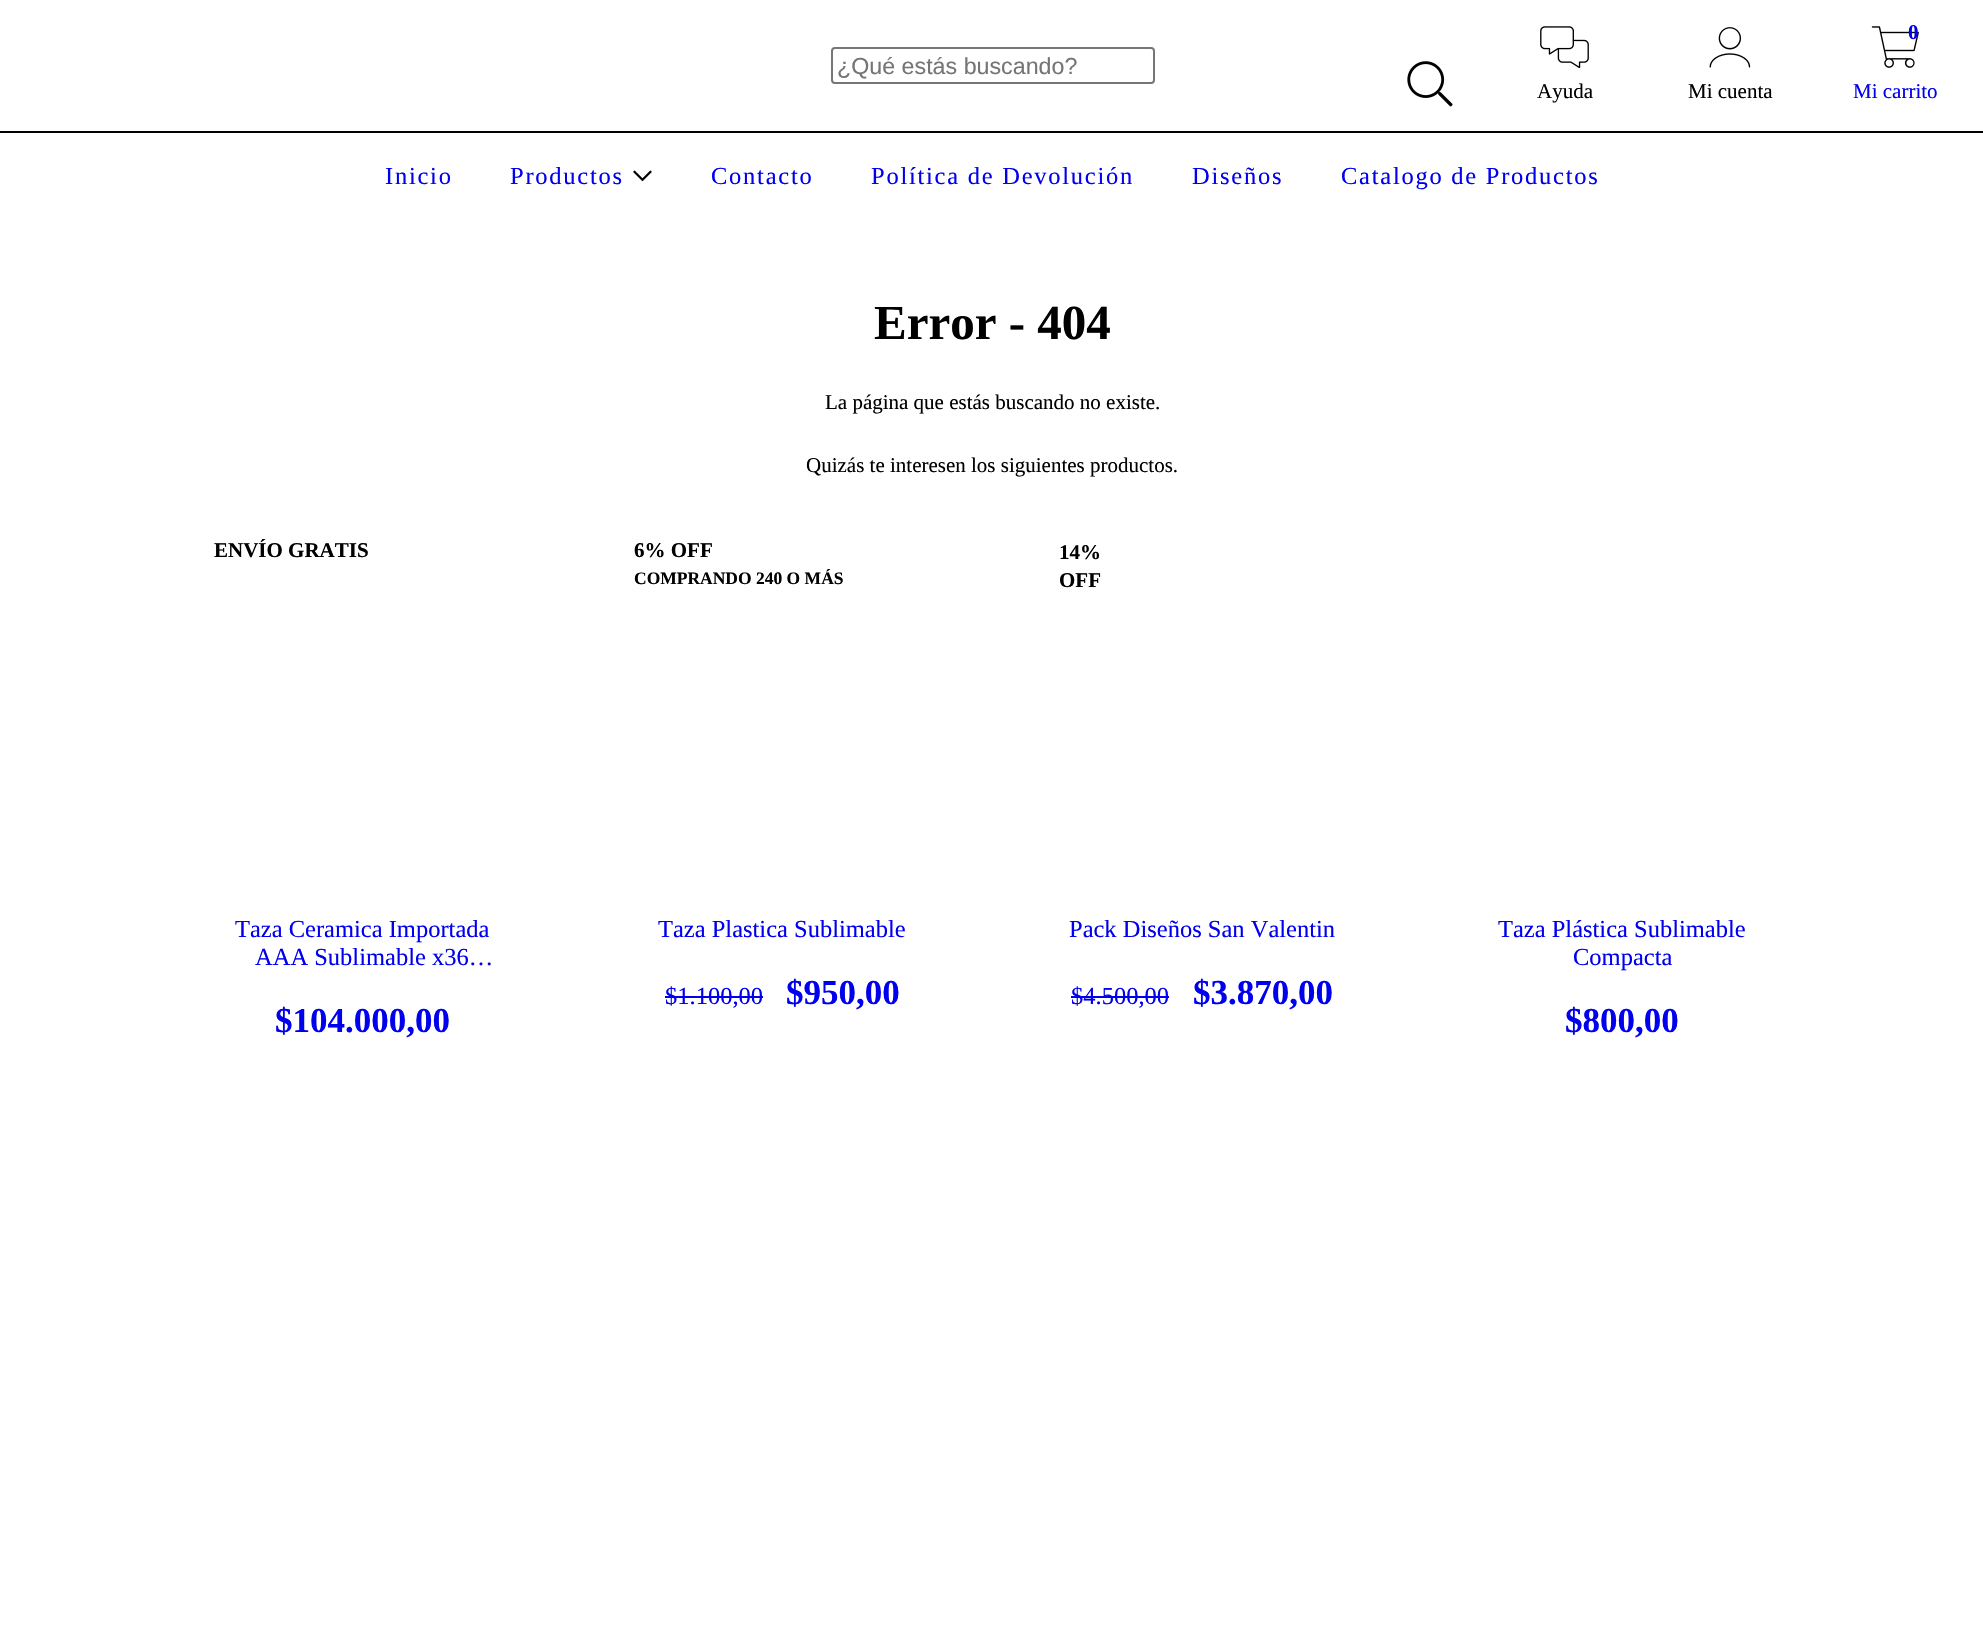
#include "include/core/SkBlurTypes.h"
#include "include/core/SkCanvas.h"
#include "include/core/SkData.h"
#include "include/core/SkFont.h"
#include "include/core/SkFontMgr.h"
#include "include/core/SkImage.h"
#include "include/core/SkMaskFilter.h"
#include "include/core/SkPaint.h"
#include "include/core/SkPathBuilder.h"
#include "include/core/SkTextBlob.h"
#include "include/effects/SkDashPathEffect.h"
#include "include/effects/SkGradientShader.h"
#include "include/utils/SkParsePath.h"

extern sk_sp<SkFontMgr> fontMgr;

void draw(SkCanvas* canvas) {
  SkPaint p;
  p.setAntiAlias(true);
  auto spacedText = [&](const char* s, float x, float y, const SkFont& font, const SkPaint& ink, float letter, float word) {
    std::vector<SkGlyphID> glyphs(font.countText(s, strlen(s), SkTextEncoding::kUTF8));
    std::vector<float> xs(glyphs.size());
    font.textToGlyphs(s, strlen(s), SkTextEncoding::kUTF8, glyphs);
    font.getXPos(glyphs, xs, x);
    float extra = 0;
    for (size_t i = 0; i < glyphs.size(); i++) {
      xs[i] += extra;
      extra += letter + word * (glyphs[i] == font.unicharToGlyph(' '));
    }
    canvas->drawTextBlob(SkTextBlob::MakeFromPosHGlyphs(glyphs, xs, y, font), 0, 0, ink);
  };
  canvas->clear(SK_ColorWHITE);
  p.setStyle(SkPaint::kStroke_Style);
  p.setStrokeWidth(2);
  p.setColor(SkColorSetRGB(118, 118, 118));
  canvas->drawRoundRect(SkRect::MakeLTRB(832, 48, 1154, 83), 3, 3, p);
  canvas->drawImageRect(SkImages::DeferredFromEncodedData(SkData::MakeFromFileName("images/1.png")), SkRect::MakeLTRB(1407, 61, 1453, 107), SkSamplingOptions());
  canvas->drawImageRect(SkImages::DeferredFromEncodedData(SkData::MakeFromFileName("images/2.png")), SkRect::MakeLTRB(1540, 26, 1589, 68), SkSamplingOptions());
  canvas->drawImageRect(SkImages::DeferredFromEncodedData(SkData::MakeFromFileName("images/3.png")), SkRect::MakeLTRB(1709, 27, 1751, 68), SkSamplingOptions());
  canvas->drawImageRect(SkImages::DeferredFromEncodedData(SkData::MakeFromFileName("images/4.png")), SkRect::MakeLTRB(1871, 26, 1919, 68), SkSamplingOptions());
  p.setStyle(SkPaint::kFill_Style);
  p.setColor(SK_ColorBLACK);
  canvas->drawRect(SkRect::MakeLTRB(0, 131, 1983, 133), p);
  canvas->drawImageRect(SkImages::DeferredFromEncodedData(SkData::MakeFromFileName("images/5.png")), SkRect::MakeLTRB(633, 170, 652, 182), SkSamplingOptions());
  p.setColor(SkColorSetRGB(0, 0, 238));
  canvas->drawRect(SkRect::MakeLTRB(665, 996, 763, 998), p);
  canvas->drawRect(SkRect::MakeLTRB(1071, 996, 1169, 998), p);
  SkFont font1(fontMgr->matchFamilyStyle("Liberation Sans", SkFontStyle::Normal()), 23.25f);
  font1.setSubpixel(true);
  p.setColor(SkColorSetRGB(117, 117, 117));
  canvas->drawString("¿Qué estás buscando?", 837, 74, font1, p);
  SkFont font2(fontMgr->matchFamilyStyle("Liberation Serif", SkFontStyle::Normal()), 21);
  font2.setSubpixel(true);
  p.setColor(SK_ColorBLACK);
  canvas->drawString("Ayuda", 1537, 98, font2, p);
  canvas->drawString("Mi cuenta", 1688, 98, font2, p);
  SkFont font3(fontMgr->matchFamilyStyle("Liberation Serif", SkFontStyle::Bold()), 21);
  font3.setSubpixel(true);
  p.setColor(SkColorSetRGB(0, 0, 238));
  canvas->drawString("0", 1908, 39, font3, p);
  canvas->drawString("Mi carrito", 1853, 98, font2, p);
  SkFont font4(fontMgr->matchFamilyStyle("Liberation Serif", SkFontStyle::Normal()), 24.5f);
  font4.setSubpixel(true);
  spacedText("Inicio", 385, 184, font4, p, 1.75f, 0);
  spacedText("Productos", 510, 184, font4, p, 1.75f, 0);
  spacedText("Contacto", 711, 184, font4, p, 1.75f, 0);
  spacedText("Política de Devolución", 871, 184, font4, p, 1.75f, 0);
  spacedText("Diseños", 1192, 184, font4, p, 1.75f, 0);
  spacedText("Catalogo de Productos", 1341, 184, font4, p, 1.75f, 0);
  SkFont font5(fontMgr->matchFamilyStyle("Liberation Serif", SkFontStyle::Bold()), 49);
  font5.setSubpixel(true);
  p.setColor(SK_ColorBLACK);
  canvas->drawString("Error - 404", 874, 339, font5, p);
  canvas->drawString("La página que estás buscando no existe.", 825, 409, font2, p);
  canvas->drawString("Quizás te interesen los siguientes productos.", 806, 472, font2, p);
  canvas->drawString("ENVÍO GRATIS", 214, 557, font3, p);
  p.setColor(SkColorSetRGB(0, 0, 238));
  canvas->drawString("Taza Ceramica Importada", 235, 937, font4, p);
  canvas->drawString("AAA Sublimable x36…", 255, 965, font4, p);
  SkFont font6(fontMgr->matchFamilyStyle("Liberation Serif", SkFontStyle::Bold()), 35);
  font6.setSubpixel(true);
  canvas->drawString("$104.000,00", 275, 1032, font6, p);
  p.setColor(SK_ColorBLACK);
  canvas->drawString("6% OFF", 634, 557, font3, p);
  SkFont font7(fontMgr->matchFamilyStyle("Liberation Serif", SkFontStyle::Bold()), 17.5f);
  font7.setSubpixel(true);
  canvas->drawString("COMPRANDO 240 O MÁS", 634, 584, font7, p);
  p.setColor(SkColorSetRGB(0, 0, 238));
  canvas->drawString("Taza Plastica Sublimable", 658, 937, font4, p);
  canvas->drawString("$1.100,00", 665, 1004, font4, p);
  canvas->drawString("$950,00", 786, 1004, font6, p);
  p.setColor(SK_ColorBLACK);
  canvas->drawString("14%", 1059, 559, font3, p);
  canvas->drawString("OFF", 1059, 587, font3, p);
  p.setColor(SkColorSetRGB(0, 0, 238));
  canvas->drawString("Pack Diseños San Valentin", 1069, 937, font4, p);
  canvas->drawString("$4.500,00", 1071, 1004, font4, p);
  canvas->drawString("$3.870,00", 1193, 1004, font6, p);
  canvas->drawString("Taza Plástica Sublimable", 1498, 937, font4, p);
  canvas->drawString("Compacta", 1573, 965, font4, p);
  canvas->drawString("$800,00", 1565, 1032, font6, p);
}
